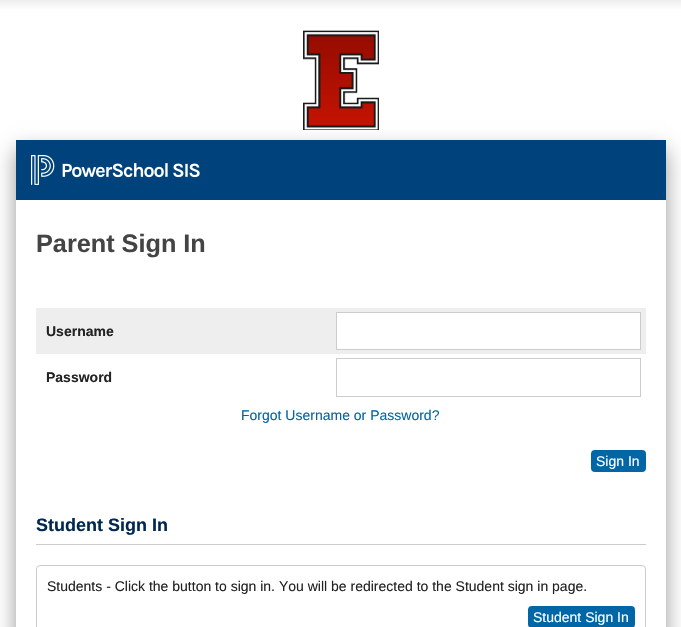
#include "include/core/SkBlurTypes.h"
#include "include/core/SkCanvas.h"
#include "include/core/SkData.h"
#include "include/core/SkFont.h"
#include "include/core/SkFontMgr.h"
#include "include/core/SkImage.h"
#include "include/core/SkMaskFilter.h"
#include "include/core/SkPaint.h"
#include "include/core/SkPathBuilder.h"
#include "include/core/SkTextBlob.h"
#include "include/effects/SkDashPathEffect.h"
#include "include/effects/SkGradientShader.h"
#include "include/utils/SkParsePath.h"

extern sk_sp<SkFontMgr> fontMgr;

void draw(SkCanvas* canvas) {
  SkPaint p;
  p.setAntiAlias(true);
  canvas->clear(SK_ColorWHITE);
  {
    const SkColor colors[] = {SkColorSetRGB(237, 237, 237), SK_ColorWHITE};
    const float stops[] = {0, 1};
    const SkPoint ends[] = {{0, 0}, {0, 10}};
    p.setShader(SkGradientShader::MakeLinear(ends, colors, stops, 2, SkTileMode::kClamp));
    p.setAlpha(255);
  }
  canvas->drawRect(SkRect::MakeLTRB(0, 0, 681, 9), p);
  canvas->drawImageRect(SkImages::DeferredFromEncodedData(SkData::MakeFromFileName("images/1.png")), SkRect::MakeLTRB(303, 30, 379, 130), SkSamplingOptions());
  canvas->save();
  canvas->clipPath(SkPathBuilder(SkPathFillType::kEvenOdd).moveTo(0, 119).lineTo(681, 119).lineTo(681, 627).lineTo(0, 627).close().moveTo(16, 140).lineTo(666, 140).lineTo(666, 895).lineTo(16, 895).close().detach(), true);
  p.setShader(nullptr);
  p.setColor(SkColorSetARGB(102, 0, 0, 0));
  p.setMaskFilter(SkMaskFilter::MakeBlur(kNormal_SkBlurStyle, 10));
  canvas->drawRect(SkRect::MakeLTRB(16, 150, 666, 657), p);
  p.setMaskFilter(nullptr);
  canvas->restore();
  p.setColor(SkColorSetRGB(0, 66, 124));
  canvas->drawRect(SkRect::MakeLTRB(16, 140, 666, 200), p);
  canvas->drawImageRect(SkImages::DeferredFromEncodedData(SkData::MakeFromFileName("images/2.png")), SkRect::MakeLTRB(31, 155, 200, 185), SkSamplingOptions());
  p.setColor(SkColorSetRGB(238, 238, 238));
  canvas->drawRect(SkRect::MakeLTRB(36, 308, 646, 354), p);
  p.setColor(SK_ColorWHITE);
  canvas->drawRect(SkRect::MakeLTRB(336.5f, 312.5f, 640.5f, 349.5f), p);
  p.setStyle(SkPaint::kStroke_Style);
  p.setStrokeWidth(1);
  p.setColor(SkColorSetRGB(204, 204, 204));
  canvas->drawRect(SkRect::MakeLTRB(336.5f, 312.5f, 640.5f, 349.5f), p);
  canvas->drawRect(SkRect::MakeLTRB(336.5f, 358.5f, 640.5f, 396.5f), p);
  p.setStyle(SkPaint::kFill_Style);
  p.setColor(SkColorSetRGB(0, 102, 165));
  canvas->drawRoundRect(SkRect::MakeLTRB(591, 450, 646, 472), 4, 4, p);
  p.setColor(SkColorSetRGB(204, 204, 204));
  canvas->drawRect(SkRect::MakeLTRB(36, 544, 646, 545), p);
  p.setStyle(SkPaint::kStroke_Style);
  canvas->drawRoundRect(SkRect::MakeLTRB(36.5f, 565.5f, 645.5f, 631.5f), 3.5f, 3.5f, p);
  p.setStyle(SkPaint::kFill_Style);
  p.setColor(SkColorSetRGB(0, 102, 165));
  canvas->drawRoundRect(SkRect::MakeLTRB(528, 606, 635, 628), 4, 4, p);
  SkFont font1(fontMgr->matchFamilyStyle("Liberation Sans", SkFontStyle::Bold()), 25.25f);
  font1.setSubpixel(true);
  p.setColor(SkColorSetRGB(68, 68, 68));
  canvas->drawString("Parent Sign In", 36, 252, font1, p);
  SkFont font2(fontMgr->matchFamilyStyle("Liberation Sans", SkFontStyle::Bold()), 14);
  font2.setSubpixel(true);
  p.setColor(SkColorSetRGB(34, 34, 34));
  canvas->drawString("Username", 46, 336, font2, p);
  canvas->drawString("Password", 46, 382, font2, p);
  SkFont font3(fontMgr->matchFamilyStyle("Liberation Sans", SkFontStyle::Normal()), 14);
  font3.setSubpixel(true);
  p.setColor(SkColorSetRGB(0, 102, 165));
  canvas->drawString("Forgot Username or Password?", 241, 420, font3, p);
  p.setColor(SK_ColorWHITE);
  canvas->drawString("Sign In", 596, 466, font3, p);
  SkFont font4(fontMgr->matchFamilyStyle("Liberation Sans", SkFontStyle::Bold()), 18);
  font4.setSubpixel(true);
  p.setColor(SkColorSetRGB(0, 40, 80));
  canvas->drawString("Student Sign In", 36, 531, font4, p);
  p.setColor(SkColorSetRGB(34, 34, 34));
  canvas->drawString("Students - Click the button to sign in. You will be redirected to the Student sign in page.", 47, 591, font3, p);
  p.setColor(SK_ColorWHITE);
  canvas->drawString("Student Sign In", 533, 622, font3, p);
}
